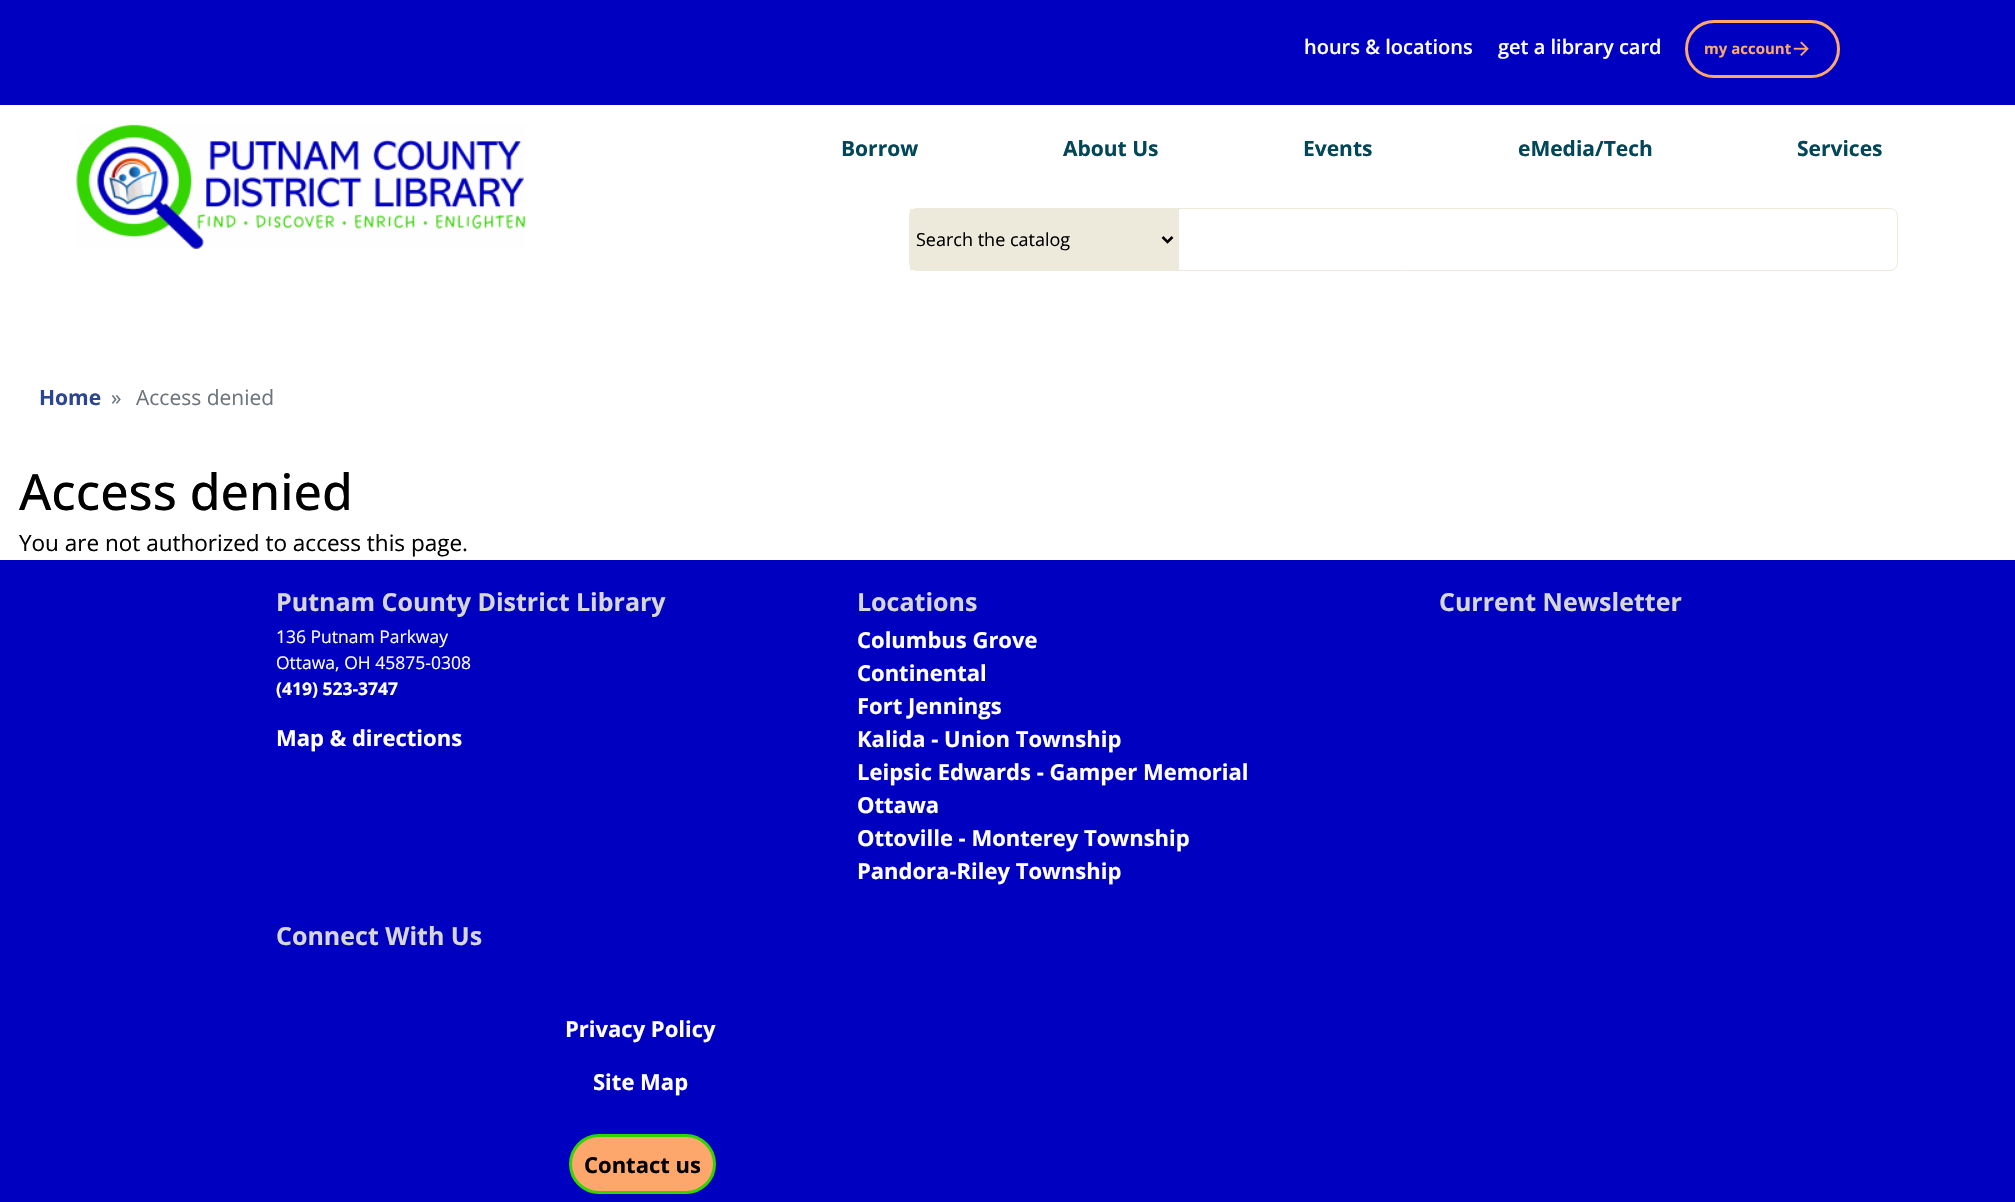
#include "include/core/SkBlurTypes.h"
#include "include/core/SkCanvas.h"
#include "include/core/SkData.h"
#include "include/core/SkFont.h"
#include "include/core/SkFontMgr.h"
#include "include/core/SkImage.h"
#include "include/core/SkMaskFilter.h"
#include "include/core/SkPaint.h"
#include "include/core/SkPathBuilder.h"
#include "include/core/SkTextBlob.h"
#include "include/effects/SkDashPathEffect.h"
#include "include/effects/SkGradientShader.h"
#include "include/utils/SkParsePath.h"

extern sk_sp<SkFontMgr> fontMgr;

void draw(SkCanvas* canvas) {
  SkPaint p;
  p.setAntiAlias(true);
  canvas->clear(SK_ColorWHITE);
  p.setColor(SkColorSetRGB(0, 0, 192));
  canvas->drawRect(SkRect::MakeLTRB(0, 0, 2015, 105), p);
  p.setStyle(SkPaint::kStroke_Style);
  p.setStrokeWidth(3);
  p.setColor(SkColorSetRGB(253, 167, 109));
  canvas->drawRoundRect(SkRect::MakeLTRB(1686.5f, 21.5f, 1838.5f, 76.5f), 27.5f, 27.5f, p);
  canvas->drawImageRect(SkImages::DeferredFromEncodedData(SkData::MakeFromFileName("images/1.png")), SkRect::MakeLTRB(1793, 41, 1809, 56), SkSamplingOptions());
  canvas->drawImageRect(SkImages::DeferredFromEncodedData(SkData::MakeFromFileName("images/2.png")), SkRect::MakeLTRB(76, 124, 526, 249), SkSamplingOptions());
  p.setStrokeWidth(1);
  p.setColor(SkColorSetRGB(237, 234, 220));
  canvas->drawRoundRect(SkRect::MakeLTRB(909.5f, 208.5f, 1897.5f, 270.5f), 7.5f, 7.5f, p);
  p.setStyle(SkPaint::kFill_Style);
  canvas->drawRect(SkRect::MakeLTRB(910, 209, 1179, 270), p);
  p.setStyle(SkPaint::kStroke_Style);
  p.setStrokeWidth(2.5f);
  p.setColor(SK_ColorBLACK);
  canvas->drawPath(SkPathBuilder().moveTo(1162.5f, 237).lineTo(1167.5f, 242).lineTo(1172.5f, 237).detach(), p);
  p.setStyle(SkPaint::kFill_Style);
  p.setColor(SkColorSetRGB(0, 0, 192));
  canvas->drawRect(SkRect::MakeLTRB(0, 560, 2015, 1202), p);
  p.setColor(SkColorSetRGB(253, 167, 109));
  canvas->drawRoundRect(SkRect::MakeLTRB(570.5f, 1135.5f, 714.5f, 1192.5f), 28.5f, 28.5f, p);
  p.setStyle(SkPaint::kStroke_Style);
  p.setStrokeWidth(3);
  p.setColor(SkColorSetRGB(52, 212, 1));
  canvas->drawRoundRect(SkRect::MakeLTRB(570.5f, 1135.5f, 714.5f, 1192.5f), 28.5f, 28.5f, p);
  SkFont font1(fontMgr->matchFamilyStyle("Open Sans", SkFontStyle(600, SkFontStyle::kNormal_Width, SkFontStyle::kUpright_Slant)), 20);
  font1.setSubpixel(true);
  p.setStyle(SkPaint::kFill_Style);
  p.setColor(SK_ColorWHITE);
  canvas->drawString("hours & locations", 1304, 54, font1, p);
  canvas->drawString("get a library card", 1498, 54, font1, p);
  SkFont font2(fontMgr->matchFamilyStyle("Open Sans", SkFontStyle::Bold()), 15);
  font2.setSubpixel(true);
  p.setColor(SkColorSetRGB(253, 167, 109));
  canvas->drawString("my account", 1704, 54, font2, p);
  SkFont font3(fontMgr->matchFamilyStyle("Open Sans", SkFontStyle::Bold()), 21);
  font3.setSubpixel(true);
  p.setColor(SkColorSetRGB(2, 70, 89));
  canvas->drawString("Borrow", 841, 156, font3, p);
  canvas->drawString("About Us", 1063, 156, font3, p);
  canvas->drawString("Events", 1303, 156, font3, p);
  canvas->drawString("eMedia/Tech", 1518, 156, font3, p);
  canvas->drawString("Services", 1797, 156, font3, p);
  SkFont font4(fontMgr->matchFamilyStyle("Open Sans", SkFontStyle::Normal()), 18);
  font4.setSubpixel(true);
  p.setColor(SK_ColorBLACK);
  canvas->drawString("Search the catalog", 916, 246, font4, p);
  p.setColor(SkColorSetRGB(43, 69, 147));
  canvas->drawString("Home", 39, 405, font3, p);
  SkFont font5(fontMgr->matchFamilyStyle("Open Sans", SkFontStyle::Normal()), 21);
  font5.setSubpixel(true);
  p.setColor(SkColorSetRGB(108, 117, 125));
  canvas->drawString("»", 111, 405, font5, p);
  canvas->drawString("Access denied", 136, 405, font5, p);
  SkFont font6(fontMgr->matchFamilyStyle("Open Sans", SkFontStyle(500, SkFontStyle::kNormal_Width, SkFontStyle::kUpright_Slant)), 50);
  font6.setSubpixel(true);
  p.setColor(SK_ColorBLACK);
  canvas->drawString("Access denied", 19, 510, font6, p);
  SkFont font7(fontMgr->matchFamilyStyle("Open Sans", SkFontStyle::Normal()), 22.5f);
  font7.setSubpixel(true);
  canvas->drawString("You are not authorized to access this page.", 19, 551, font7, p);
  SkFont font8(fontMgr->matchFamilyStyle("Open Sans", SkFontStyle::Bold()), 25);
  font8.setSubpixel(true);
  p.setColor(SkColorSetRGB(214, 214, 214));
  canvas->drawString("Putnam County District Library", 276, 611, font8, p);
  SkFont font9(fontMgr->matchFamilyStyle("Open Sans", SkFontStyle::Normal()), 17.5f);
  font9.setSubpixel(true);
  p.setColor(SK_ColorWHITE);
  canvas->drawString("136 Putnam Parkway", 276, 643, font9, p);
  canvas->drawString("Ottawa, OH 45875-0308", 276, 669, font9, p);
  SkFont font10(fontMgr->matchFamilyStyle("Open Sans", SkFontStyle::Bold()), 17.5f);
  font10.setSubpixel(true);
  canvas->drawString("(419) 523-3747", 276, 695, font10, p);
  SkFont font11(fontMgr->matchFamilyStyle("Open Sans", SkFontStyle::Bold()), 22);
  font11.setSubpixel(true);
  canvas->drawString("Map & directions", 276, 746, font11, p);
  p.setColor(SkColorSetRGB(214, 214, 214));
  canvas->drawString("Locations", 857, 611, font8, p);
  p.setColor(SK_ColorWHITE);
  canvas->drawString("Columbus Grove", 857, 648, font11, p);
  canvas->drawString("Continental", 857, 681, font11, p);
  canvas->drawString("Fort Jennings", 857, 714, font11, p);
  canvas->drawString("Kalida - Union Township", 857, 747, font11, p);
  canvas->drawString("Leipsic Edwards - Gamper Memorial", 857, 780, font11, p);
  canvas->drawString("Ottawa", 857, 813, font11, p);
  canvas->drawString("Ottoville - Monterey Township", 857, 846, font11, p);
  canvas->drawString("Pandora-Riley Township", 857, 879, font11, p);
  p.setColor(SkColorSetRGB(214, 214, 214));
  canvas->drawString("Current Newsletter", 1439, 611, font8, p);
  canvas->drawString("Connect With Us", 276, 945, font8, p);
  p.setColor(SK_ColorWHITE);
  canvas->drawString("Privacy Policy", 565, 1037, font11, p);
  canvas->drawString("Site Map", 593, 1090, font11, p);
  p.setColor(SK_ColorBLACK);
  canvas->drawString("Contact us", 584, 1173, font11, p);
}
